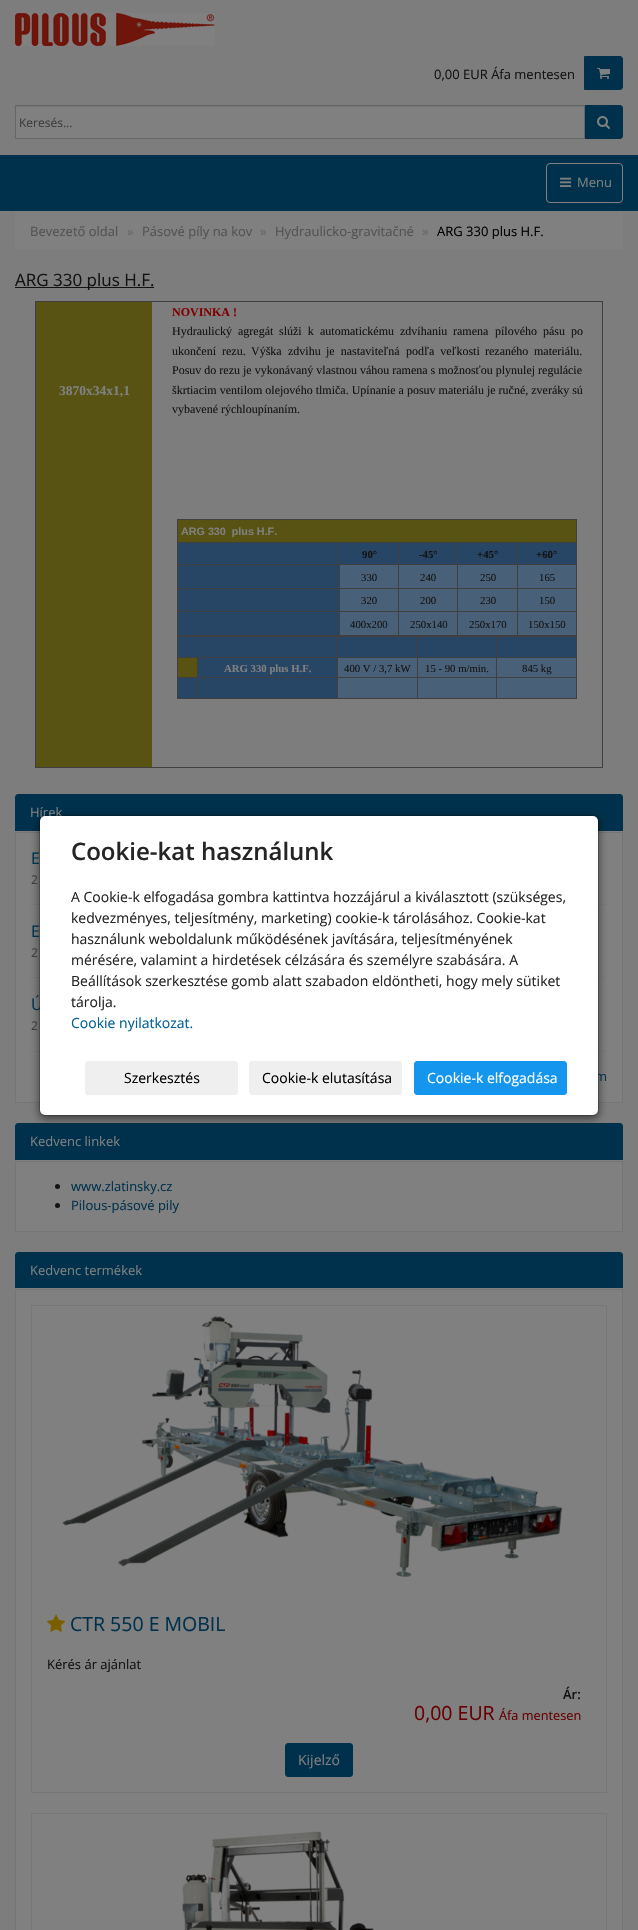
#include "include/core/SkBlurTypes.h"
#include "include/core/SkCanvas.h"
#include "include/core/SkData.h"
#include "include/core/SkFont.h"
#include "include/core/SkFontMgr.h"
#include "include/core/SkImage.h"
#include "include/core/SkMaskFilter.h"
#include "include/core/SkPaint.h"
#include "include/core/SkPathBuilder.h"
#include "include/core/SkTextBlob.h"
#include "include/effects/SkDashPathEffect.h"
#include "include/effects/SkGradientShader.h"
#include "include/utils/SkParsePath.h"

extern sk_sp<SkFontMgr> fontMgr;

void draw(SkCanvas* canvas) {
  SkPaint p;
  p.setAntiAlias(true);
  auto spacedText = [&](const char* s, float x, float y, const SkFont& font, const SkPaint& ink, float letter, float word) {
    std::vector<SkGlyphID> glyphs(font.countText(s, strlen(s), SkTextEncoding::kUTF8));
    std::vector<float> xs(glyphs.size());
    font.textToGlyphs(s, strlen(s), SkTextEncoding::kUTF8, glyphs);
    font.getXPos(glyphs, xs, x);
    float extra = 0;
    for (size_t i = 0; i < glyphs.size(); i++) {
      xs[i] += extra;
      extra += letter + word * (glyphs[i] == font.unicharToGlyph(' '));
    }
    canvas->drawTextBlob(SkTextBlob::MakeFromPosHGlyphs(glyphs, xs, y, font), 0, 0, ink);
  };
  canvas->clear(SkColorSetRGB(125, 125, 125));
  canvas->drawImageRect(SkImages::DeferredFromEncodedData(SkData::MakeFromFileName("images/1.png")), SkRect::MakeLTRB(15, 13, 215, 46), SkSamplingOptions());
  p.setColor(SkColorSetRGB(0, 49, 76));
  canvas->drawPath(SkPathBuilder().moveTo(584.5f, 56.5f).lineTo(620, 56.5f).cubicTo(621.5f, 56.5f, 622.5f, 57.5f, 622.5f, 59).lineTo(622.5f, 87).cubicTo(622.5f, 88.5f, 621.5f, 89.5f, 620, 89.5f).lineTo(584.5f, 89.5f).close().detach(), p);
  p.setStyle(SkPaint::kStroke_Style);
  p.setStrokeWidth(1);
  canvas->drawPath(SkPathBuilder().moveTo(584.5f, 56.5f).lineTo(620, 56.5f).cubicTo(621.5f, 56.5f, 622.5f, 57.5f, 622.5f, 59).lineTo(622.5f, 87).cubicTo(622.5f, 88.5f, 621.5f, 89.5f, 620, 89.5f).lineTo(584.5f, 89.5f).close().detach(), p);
  canvas->drawImageRect(SkImages::DeferredFromEncodedData(SkData::MakeFromFileName("images/2.png")), SkRect::MakeLTRB(597, 68, 610, 79), SkSamplingOptions());
  p.setStyle(SkPaint::kFill_Style);
  p.setColor(SkColorSetRGB(128, 128, 128));
  canvas->drawRect(SkRect::MakeLTRB(16, 107, 584, 138), p);
  p.setColor(SkColorSetRGB(118, 118, 118));
  canvas->drawRect(SkRect::MakeLTRB(16, 106, 584, 107), p);
  p.setColor(SkColorSetRGB(0, 49, 76));
  canvas->drawPath(SkPathBuilder().moveTo(584.5f, 105.5f).lineTo(620, 105.5f).cubicTo(621.5f, 105.5f, 622.5f, 106.5f, 622.5f, 108).lineTo(622.5f, 136).cubicTo(622.5f, 137.5f, 621.5f, 138.5f, 620, 138.5f).lineTo(584.5f, 138.5f).close().detach(), p);
  p.setStyle(SkPaint::kStroke_Style);
  canvas->drawPath(SkPathBuilder().moveTo(584.5f, 105.5f).lineTo(620, 105.5f).cubicTo(621.5f, 105.5f, 622.5f, 106.5f, 622.5f, 108).lineTo(622.5f, 136).cubicTo(622.5f, 137.5f, 621.5f, 138.5f, 620, 138.5f).lineTo(584.5f, 138.5f).close().detach(), p);
  p.setColor(SkColorSetRGB(102, 102, 102));
  canvas->drawRect(SkRect::MakeLTRB(15.5f, 105.5f, 584.5f, 138.5f), p);
  canvas->drawImageRect(SkImages::DeferredFromEncodedData(SkData::MakeFromFileName("images/3.png")), SkRect::MakeLTRB(597, 116, 610, 129), SkSamplingOptions());
  p.setStyle(SkPaint::kFill_Style);
  p.setColor(SkColorSetRGB(0, 49, 76));
  canvas->drawRect(SkRect::MakeLTRB(0, 155, 638, 211), p);
  p.setColor(SkColorSetRGB(128, 128, 128));
  canvas->drawRect(SkRect::MakeLTRB(0, 154, 638, 155), p);
  canvas->drawRect(SkRect::MakeLTRB(0, 211, 638, 212), p);
  p.setStyle(SkPaint::kStroke_Style);
  canvas->drawRoundRect(SkRect::MakeLTRB(546.5f, 163.5f, 622.5f, 202.5f), 3.5f, 3.5f, p);
  canvas->drawImageRect(SkImages::DeferredFromEncodedData(SkData::MakeFromFileName("images/4.png")), SkRect::MakeLTRB(560, 177, 572, 187), SkSamplingOptions());
  p.setStyle(SkPaint::kFill_Style);
  canvas->drawRect(SkRect::MakeLTRB(15, 212, 623, 249), p);
  p.setColor(SkColorSetRGB(19, 19, 19));
  canvas->drawRect(SkRect::MakeLTRB(15, 287, 154, 288), p);
  p.setColor(SkColorSetRGB(64, 64, 64));
  canvas->drawRect(SkRect::MakeLTRB(35, 301, 603, 302), p);
  canvas->drawRect(SkRect::MakeLTRB(602, 301, 603, 768), p);
  canvas->drawRect(SkRect::MakeLTRB(35, 767, 603, 768), p);
  canvas->drawRect(SkRect::MakeLTRB(35, 301, 36, 768), p);
  p.setColor(SkColorSetRGB(88, 83, 19));
  canvas->drawRect(SkRect::MakeLTRB(36, 302, 152, 767), p);
  p.setColor(SkColorSetRGB(64, 64, 64));
  canvas->drawRect(SkRect::MakeLTRB(177, 519, 577, 520), p);
  canvas->drawRect(SkRect::MakeLTRB(576, 519, 577, 636), p);
  canvas->drawRect(SkRect::MakeLTRB(177, 635, 577, 637), p);
  canvas->drawRect(SkRect::MakeLTRB(177, 519, 178, 636), p);
  p.setColor(SkColorSetRGB(88, 83, 19));
  canvas->drawRect(SkRect::MakeLTRB(178, 520, 576, 542), p);
  p.setColor(SkColorSetRGB(39, 69, 100));
  canvas->drawRect(SkRect::MakeLTRB(178, 543, 339, 564), p);
  p.setColor(SkColorSetRGB(64, 64, 64));
  canvas->drawRect(SkRect::MakeLTRB(517, 542, 577, 543), p);
  canvas->drawRect(SkRect::MakeLTRB(517, 564, 577, 565), p);
  canvas->drawRect(SkRect::MakeLTRB(517, 588, 577, 589), p);
  canvas->drawRect(SkRect::MakeLTRB(517, 611, 577, 612), p);
  canvas->drawRect(SkRect::MakeLTRB(517, 611, 518, 636), p);
  canvas->drawRect(SkRect::MakeLTRB(457, 611, 518, 612), p);
  canvas->drawRect(SkRect::MakeLTRB(517, 588, 518, 612), p);
  canvas->drawRect(SkRect::MakeLTRB(457, 588, 518, 589), p);
  canvas->drawRect(SkRect::MakeLTRB(517, 564, 518, 589), p);
  canvas->drawRect(SkRect::MakeLTRB(457, 564, 518, 565), p);
  canvas->drawRect(SkRect::MakeLTRB(517, 542, 518, 565), p);
  canvas->drawRect(SkRect::MakeLTRB(457, 542, 518, 543), p);
  canvas->drawRect(SkRect::MakeLTRB(457, 611, 458, 636), p);
  canvas->drawRect(SkRect::MakeLTRB(398, 611, 458, 612), p);
  canvas->drawRect(SkRect::MakeLTRB(457, 588, 458, 612), p);
  canvas->drawRect(SkRect::MakeLTRB(398, 588, 458, 589), p);
  canvas->drawRect(SkRect::MakeLTRB(457, 564, 458, 589), p);
  canvas->drawRect(SkRect::MakeLTRB(398, 564, 458, 565), p);
  canvas->drawRect(SkRect::MakeLTRB(457, 542, 458, 565), p);
  canvas->drawRect(SkRect::MakeLTRB(398, 542, 458, 543), p);
  canvas->drawRect(SkRect::MakeLTRB(398, 611, 399, 636), p);
  canvas->drawRect(SkRect::MakeLTRB(339, 611, 399, 612), p);
  canvas->drawRect(SkRect::MakeLTRB(398, 588, 399, 612), p);
  canvas->drawRect(SkRect::MakeLTRB(339, 588, 399, 589), p);
  canvas->drawRect(SkRect::MakeLTRB(398, 564, 399, 589), p);
  canvas->drawRect(SkRect::MakeLTRB(339, 564, 399, 565), p);
  canvas->drawRect(SkRect::MakeLTRB(398, 542, 399, 565), p);
  canvas->drawRect(SkRect::MakeLTRB(339, 542, 399, 543), p);
  canvas->drawRect(SkRect::MakeLTRB(339, 611, 340, 636), p);
  canvas->drawRect(SkRect::MakeLTRB(177, 611, 340, 612), p);
  canvas->drawRect(SkRect::MakeLTRB(339, 588, 340, 612), p);
  canvas->drawRect(SkRect::MakeLTRB(177, 588, 340, 589), p);
  canvas->drawRect(SkRect::MakeLTRB(339, 564, 340, 589), p);
  canvas->drawRect(SkRect::MakeLTRB(177, 564, 340, 565), p);
  canvas->drawRect(SkRect::MakeLTRB(339, 542, 340, 565), p);
  canvas->drawRect(SkRect::MakeLTRB(177, 542, 340, 543), p);
  p.setColor(SkColorSetRGB(39, 69, 100));
  canvas->drawRect(SkRect::MakeLTRB(340, 543, 398, 564), p);
  canvas->drawRect(SkRect::MakeLTRB(399, 543, 457, 564), p);
  canvas->drawRect(SkRect::MakeLTRB(458, 543, 517, 564), p);
  canvas->drawRect(SkRect::MakeLTRB(518, 543, 576, 564), p);
  canvas->drawRect(SkRect::MakeLTRB(178, 565, 339, 588), p);
  p.setColor(SkColorSetRGB(72, 97, 121));
  canvas->drawRect(SkRect::MakeLTRB(340, 565, 398, 588), p);
  canvas->drawRect(SkRect::MakeLTRB(399, 565, 457, 588), p);
  canvas->drawRect(SkRect::MakeLTRB(458, 565, 517, 588), p);
  canvas->drawRect(SkRect::MakeLTRB(518, 565, 576, 588), p);
  p.setColor(SkColorSetRGB(39, 69, 100));
  canvas->drawRect(SkRect::MakeLTRB(178, 589, 339, 611), p);
  p.setColor(SkColorSetRGB(72, 97, 121));
  canvas->drawRect(SkRect::MakeLTRB(340, 589, 398, 611), p);
  canvas->drawRect(SkRect::MakeLTRB(399, 589, 457, 611), p);
  canvas->drawRect(SkRect::MakeLTRB(458, 589, 517, 611), p);
  canvas->drawRect(SkRect::MakeLTRB(518, 589, 576, 611), p);
  p.setColor(SkColorSetRGB(39, 69, 100));
  canvas->drawRect(SkRect::MakeLTRB(178, 612, 339, 635), p);
  p.setColor(SkColorSetRGB(72, 97, 121));
  canvas->drawRect(SkRect::MakeLTRB(340, 612, 398, 635), p);
  canvas->drawRect(SkRect::MakeLTRB(399, 612, 457, 635), p);
  canvas->drawRect(SkRect::MakeLTRB(458, 612, 517, 635), p);
  canvas->drawRect(SkRect::MakeLTRB(518, 612, 576, 635), p);
  p.setColor(SkColorSetRGB(64, 64, 64));
  canvas->drawRect(SkRect::MakeLTRB(576, 636, 577, 699), p);
  canvas->drawRect(SkRect::MakeLTRB(177, 698, 577, 699), p);
  canvas->drawRect(SkRect::MakeLTRB(177, 636, 178, 699), p);
  p.setColor(SkColorSetRGB(39, 69, 100));
  canvas->drawRect(SkRect::MakeLTRB(178, 637, 337, 657), p);
  canvas->drawRect(SkRect::MakeLTRB(338, 637, 417, 657), p);
  p.setColor(SkColorSetRGB(64, 64, 64));
  canvas->drawRect(SkRect::MakeLTRB(496, 657, 577, 658), p);
  canvas->drawRect(SkRect::MakeLTRB(496, 677, 577, 678), p);
  canvas->drawRect(SkRect::MakeLTRB(496, 677, 497, 699), p);
  canvas->drawRect(SkRect::MakeLTRB(417, 677, 497, 678), p);
  canvas->drawRect(SkRect::MakeLTRB(496, 657, 497, 678), p);
  canvas->drawRect(SkRect::MakeLTRB(417, 657, 497, 658), p);
  canvas->drawRect(SkRect::MakeLTRB(417, 677, 418, 699), p);
  canvas->drawRect(SkRect::MakeLTRB(337, 677, 418, 678), p);
  canvas->drawRect(SkRect::MakeLTRB(417, 657, 418, 678), p);
  canvas->drawRect(SkRect::MakeLTRB(337, 657, 418, 658), p);
  canvas->drawRect(SkRect::MakeLTRB(337, 677, 338, 699), p);
  canvas->drawRect(SkRect::MakeLTRB(197, 677, 338, 678), p);
  canvas->drawRect(SkRect::MakeLTRB(337, 657, 338, 678), p);
  canvas->drawRect(SkRect::MakeLTRB(197, 657, 338, 658), p);
  canvas->drawRect(SkRect::MakeLTRB(337, 636, 338, 658), p);
  p.setColor(SkColorSetRGB(39, 69, 100));
  canvas->drawRect(SkRect::MakeLTRB(418, 637, 496, 657), p);
  p.setColor(SkColorSetRGB(64, 64, 64));
  canvas->drawRect(SkRect::MakeLTRB(417, 636, 418, 658), p);
  p.setColor(SkColorSetRGB(39, 69, 100));
  canvas->drawRect(SkRect::MakeLTRB(497, 637, 576, 657), p);
  p.setColor(SkColorSetRGB(64, 64, 64));
  canvas->drawRect(SkRect::MakeLTRB(496, 636, 497, 658), p);
  p.setColor(SkColorSetRGB(88, 83, 19));
  canvas->drawRect(SkRect::MakeLTRB(178, 658, 197, 677), p);
  p.setColor(SkColorSetRGB(64, 64, 64));
  canvas->drawRect(SkRect::MakeLTRB(197, 677, 198, 699), p);
  canvas->drawRect(SkRect::MakeLTRB(177, 677, 198, 678), p);
  canvas->drawRect(SkRect::MakeLTRB(197, 657, 198, 678), p);
  canvas->drawRect(SkRect::MakeLTRB(177, 657, 198, 658), p);
  p.setColor(SkColorSetRGB(39, 69, 100));
  canvas->drawRect(SkRect::MakeLTRB(198, 658, 337, 677), p);
  p.setColor(SkColorSetRGB(72, 97, 121));
  canvas->drawRect(SkRect::MakeLTRB(338, 658, 417, 677), p);
  canvas->drawRect(SkRect::MakeLTRB(418, 658, 496, 677), p);
  canvas->drawRect(SkRect::MakeLTRB(497, 658, 576, 677), p);
  p.setColor(SkColorSetRGB(39, 69, 100));
  canvas->drawRect(SkRect::MakeLTRB(178, 678, 197, 698), p);
  canvas->drawRect(SkRect::MakeLTRB(198, 678, 337, 698), p);
  p.setColor(SkColorSetRGB(72, 97, 121));
  canvas->drawRect(SkRect::MakeLTRB(338, 678, 417, 698), p);
  canvas->drawRect(SkRect::MakeLTRB(418, 678, 496, 698), p);
  canvas->drawRect(SkRect::MakeLTRB(497, 678, 576, 698), p);
  p.setColor(SkColorSetRGB(128, 128, 128));
  canvas->drawRoundRect(SkRect::MakeLTRB(15, 794, 623, 1103), 3, 3, p);
  p.setColor(SkColorSetRGB(0, 49, 76));
  canvas->drawPath(SkPathBuilder().moveTo(18, 794).lineTo(620, 794).cubicTo(621.5f, 794, 623, 795.5f, 623, 797).lineTo(623, 832).lineTo(15, 832).lineTo(15, 797).cubicTo(15, 795.5f, 16.5f, 794, 18, 794).close().detach(), p);
  p.setColor(SkColorSetRGB(128, 128, 128));
  canvas->drawRect(SkRect::MakeLTRB(15, 831, 623, 832), p);
  p.setStyle(SkPaint::kStroke_Style);
  p.setColor(SkColorSetRGB(117, 117, 117));
  canvas->drawRect(SkRect::MakeLTRB(15.5f, 832.5f, 622.5f, 1102.5f), p);
  p.setPathEffect(SkDashPathEffect::Make({{1, 1}}, 0));
  canvas->drawPath(SkPathBuilder().moveTo(31, 904.5f).lineTo(607, 904.5f).detach(), p);
  p.setPathEffect(nullptr);
  p.setPathEffect(SkDashPathEffect::Make({{1, 1}}, 0));
  canvas->drawPath(SkPathBuilder().moveTo(31, 977.5f).lineTo(607, 977.5f).detach(), p);
  p.setPathEffect(nullptr);
  p.setPathEffect(SkDashPathEffect::Make({{1, 1}}, 0));
  canvas->drawPath(SkPathBuilder().moveTo(31, 1051.5f).lineTo(607, 1051.5f).detach(), p);
  p.setPathEffect(nullptr);
  p.setStyle(SkPaint::kFill_Style);
  p.setColor(SkColorSetRGB(128, 128, 128));
  canvas->drawRoundRect(SkRect::MakeLTRB(15, 1123, 623, 1232), 3, 3, p);
  p.setColor(SkColorSetRGB(0, 49, 76));
  canvas->drawPath(SkPathBuilder().moveTo(18, 1123).lineTo(620, 1123).cubicTo(621.5f, 1123, 623, 1124.5f, 623, 1126).lineTo(623, 1161).lineTo(15, 1161).lineTo(15, 1126).cubicTo(15, 1124.5f, 16.5f, 1123, 18, 1123).close().detach(), p);
  p.setColor(SkColorSetRGB(128, 128, 128));
  canvas->drawRect(SkRect::MakeLTRB(15, 1160, 623, 1161), p);
  p.setStyle(SkPaint::kStroke_Style);
  p.setColor(SkColorSetRGB(117, 117, 117));
  canvas->drawRect(SkRect::MakeLTRB(15.5f, 1161.5f, 622.5f, 1231.5f), p);
  p.setStyle(SkPaint::kFill_Style);
  p.setColor(SkColorSetRGB(19, 19, 19));
  canvas->drawCircle(57.5f, 1186.5f, 2.5f, p);
  canvas->drawCircle(57.5f, 1205.5f, 2.5f, p);
  p.setColor(SkColorSetRGB(128, 128, 128));
  canvas->drawRoundRect(SkRect::MakeLTRB(15, 1252, 623, 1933), 3, 3, p);
  p.setColor(SkColorSetRGB(0, 49, 76));
  canvas->drawPath(SkPathBuilder().moveTo(18, 1252).lineTo(620, 1252).cubicTo(621.5f, 1252, 623, 1253.5f, 623, 1255).lineTo(623, 1289).lineTo(15, 1289).lineTo(15, 1255).cubicTo(15, 1253.5f, 16.5f, 1252, 18, 1252).close().detach(), p);
  p.setColor(SkColorSetRGB(128, 128, 128));
  canvas->drawRect(SkRect::MakeLTRB(15, 1288, 623, 1289), p);
  p.setStyle(SkPaint::kStroke_Style);
  p.setColor(SkColorSetRGB(117, 117, 117));
  canvas->drawRect(SkRect::MakeLTRB(15.5f, 1289.5f, 622.5f, 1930.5f), p);
  p.setColor(SkColorSetRGB(119, 119, 119));
  canvas->drawRect(SkRect::MakeLTRB(31.5f, 1305.5f, 606.5f, 1792.5f), p);
  canvas->drawImageRect(SkImages::DeferredFromEncodedData(SkData::MakeFromFileName("images/5.png")), SkRect::MakeLTRB(62, 1316, 563, 1577), SkSamplingOptions());
  canvas->drawImageRect(SkImages::DeferredFromEncodedData(SkData::MakeFromFileName("images/6.png")), SkRect::MakeLTRB(47, 1614, 66, 1632), SkSamplingOptions());
  p.setStyle(SkPaint::kFill_Style);
  p.setColor(SkColorSetRGB(0, 49, 76));
  canvas->drawRoundRect(SkRect::MakeLTRB(285.5f, 1743.5f, 352.5f, 1776.5f), 2.5f, 2.5f, p);
  p.setStyle(SkPaint::kStroke_Style);
  canvas->drawRoundRect(SkRect::MakeLTRB(285.5f, 1743.5f, 352.5f, 1776.5f), 2.5f, 2.5f, p);
  p.setColor(SkColorSetRGB(119, 119, 119));
  canvas->drawRect(SkRect::MakeLTRB(31.5f, 1813.5f, 606.5f, 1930.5f), p);
  canvas->drawImageRect(SkImages::DeferredFromEncodedData(SkData::MakeFromFileName("images/7.png")), SkRect::MakeLTRB(182, 1831, 374, 1930), SkSamplingOptions());
  p.setStyle(SkPaint::kFill_Style);
  p.setColor(SkColorSetARGB(128, 0, 0, 0));
  p.setMaskFilter(SkMaskFilter::MakeBlur(kNormal_SkBlurStyle, 4.5f));
  canvas->drawRoundRect(SkRect::MakeLTRB(39, 818, 599, 1119), 6, 6, p);
  p.setMaskFilter(nullptr);
  SkFont font1(fontMgr->matchFamilyStyle("Open Sans", SkFontStyle::Normal()), 13);
  font1.setSubpixel(true);
  p.setColor(SkColorSetRGB(19, 19, 19));
  canvas->drawString("0,00 EUR Áfa mentesen", 434, 79, font1, p);
  SkFont font2(fontMgr->matchFamilyStyle("Open Sans", SkFontStyle::Normal()), 12);
  font2.setSubpixel(true);
  p.setColor(SkColorSetRGB(60, 60, 60));
  canvas->drawString("Keresés...", 19, 127, font2, p);
  p.setColor(SkColorSetRGB(128, 128, 128));
  canvas->drawString("Menu", 577, 187, font1, p);
  p.setColor(SkColorSetRGB(82, 82, 82));
  canvas->drawString("Bevezető oldal", 30, 236, font1, p);
  p.setColor(SkColorSetRGB(102, 102, 102));
  canvas->drawString("»", 127, 236, font1, p);
  p.setColor(SkColorSetRGB(82, 82, 82));
  canvas->drawString("Pásové píly na kov", 142, 236, font1, p);
  p.setColor(SkColorSetRGB(102, 102, 102));
  canvas->drawString("»", 260, 236, font1, p);
  p.setColor(SkColorSetRGB(82, 82, 82));
  canvas->drawString("Hydraulicko-gravitačné", 275, 236, font1, p);
  p.setColor(SkColorSetRGB(102, 102, 102));
  canvas->drawString("»", 422, 236, font1, p);
  p.setColor(SK_ColorBLACK);
  canvas->drawString("ARG 330 plus H.F.", 437, 236, font1, p);
  SkFont font3(fontMgr->matchFamilyStyle("Open Sans", SkFontStyle::Normal()), 17);
  font3.setSubpixel(true);
  p.setColor(SkColorSetRGB(19, 19, 19));
  canvas->drawString("ARG 330 plus H.F.", 15, 286, font3, p);
  SkFont font4(fontMgr->matchFamilyStyle("Liberation Serif", SkFontStyle::Bold()), 13.5f);
  font4.setSubpixel(true);
  p.setColor(SkColorSetRGB(128, 128, 128));
  canvas->drawString("3870x34x1,1", 59, 395, font4, p);
  SkFont font5(fontMgr->matchFamilyStyle("Liberation Serif", SkFontStyle::Bold()), 12);
  font5.setSubpixel(true);
  p.setColor(SkColorSetRGB(128, 0, 0));
  canvas->drawString("NOVINKA !", 172, 316, font5, p);
  SkFont font6(fontMgr->matchFamilyStyle("Liberation Serif", SkFontStyle::Normal()), 12);
  font6.setSubpixel(true);
  p.setColor(SkColorSetRGB(19, 19, 19));
  canvas->drawString("Hydraulický", 172, 335, font6, p);
  canvas->drawString("agregát", 238, 335, font6, p);
  spacedText("slúži k", 279, 335, font6, p, 0, 3);
  canvas->drawString("automatickému", 320, 335, font6, p);
  canvas->drawString("zdvíhaniu", 400, 335, font6, p);
  canvas->drawString("ramena", 453, 335, font6, p);
  canvas->drawString("pílového", 495, 335, font6, p);
  canvas->drawString("pásu", 543, 335, font6, p);
  canvas->drawString("po", 571, 335, font6, p);
  canvas->drawString("ukončení", 172, 355, font6, p);
  canvas->drawString("rezu.", 222, 355, font6, p);
  canvas->drawString("Výška", 251, 355, font6, p);
  canvas->drawString("zdvihu", 288, 355, font6, p);
  spacedText("je nastaviteľná", 326, 355, font6, p, 0, 3);
  spacedText("podľa veľkosti", 406, 355, font6, p, 0, 3);
  canvas->drawString("rezaného", 485, 355, font6, p);
  canvas->drawString("materiálu.", 534, 355, font6, p);
  canvas->drawString("Posuv do rezu je vykonávaný vlastnou váhou ramena s možnosťou plynulej regulácie", 172, 374, font6, p);
  canvas->drawString("škrtiacim ventilom olejového tlmiča. Upínanie a posuv materiálu je ručné, zveráky sú", 172, 394, font6, p);
  canvas->drawString("vybavené rýchloupínaním.", 172, 413, font6, p);
  SkFont font7(fontMgr->matchFamilyStyle("Liberation Sans", SkFontStyle::Bold()), 10.75f);
  font7.setSubpixel(true);
  p.setColor(SkColorSetRGB(128, 128, 128));
  canvas->drawString("ARG 330  plus H.F.", 181, 535, font7, p);
  SkFont font8(fontMgr->matchFamilyStyle("Liberation Serif", SkFontStyle::Bold()), 10.75f);
  font8.setSubpixel(true);
  p.setColor(SkColorSetRGB(19, 19, 19));
  canvas->drawString("90°", 362, 558, font8, p);
  canvas->drawString("-45°", 419, 558, font8, p);
  canvas->drawString("+45°", 477, 558, font8, p);
  canvas->drawString("+60°", 536, 558, font8, p);
  SkFont font9(fontMgr->matchFamilyStyle("Liberation Serif", SkFontStyle::Normal()), 10.75f);
  font9.setSubpixel(true);
  canvas->drawString("330", 361, 581, font9, p);
  canvas->drawString("240", 420, 581, font9, p);
  canvas->drawString("250", 480, 581, font9, p);
  canvas->drawString("165", 539, 581, font9, p);
  canvas->drawString("320", 361, 604, font9, p);
  canvas->drawString("200", 420, 604, font9, p);
  canvas->drawString("230", 480, 604, font9, p);
  canvas->drawString("150", 539, 604, font9, p);
  canvas->drawString("400x200", 350, 628, font9, p);
  canvas->drawString("250x140", 410, 628, font9, p);
  canvas->drawString("250x170", 469, 628, font9, p);
  canvas->drawString("150x150", 528, 628, font9, p);
  p.setColor(SkColorSetRGB(128, 128, 128));
  canvas->drawString("ARG 330 plus H.F.", 224, 672, font8, p);
  p.setColor(SkColorSetRGB(19, 19, 19));
  canvas->drawString("400 V / 3,7 kW", 344, 672, font9, p);
  canvas->drawString("15 - 90 m/min.", 425, 672, font9, p);
  canvas->drawString("845 kg", 522, 672, font9, p);
  p.setColor(SkColorSetRGB(128, 128, 128));
  canvas->drawString("Hírek", 30, 817, font1, p);
  SkFont font10(fontMgr->matchFamilyStyle("Open Sans", SkFontStyle::Normal()), 16);
  font10.setSubpixel(true);
  p.setColor(SkColorSetRGB(0, 49, 76));
  canvas->drawString("E", 31, 864, font10, p);
  p.setColor(SkColorSetRGB(60, 60, 60));
  canvas->drawString("2", 31, 884, font2, p);
  p.setColor(SkColorSetRGB(0, 49, 76));
  canvas->drawString("E", 31, 937, font10, p);
  p.setColor(SkColorSetRGB(60, 60, 60));
  canvas->drawString("2", 31, 957, font2, p);
  p.setColor(SkColorSetRGB(0, 49, 76));
  canvas->drawString("Ú", 31, 1010, font10, p);
  p.setColor(SkColorSetRGB(60, 60, 60));
  canvas->drawString("2", 31, 1030, font2, p);
  p.setColor(SkColorSetRGB(0, 49, 76));
  canvas->drawString("m", 595, 1081, font1, p);
  p.setColor(SkColorSetRGB(128, 128, 128));
  canvas->drawString("Kedvenc linkek", 30, 1146, font1, p);
  p.setColor(SkColorSetRGB(0, 49, 76));
  canvas->drawString("www.zlatinsky.cz", 71, 1191, font1, p);
  canvas->drawString("Pilous-pásové pily", 71, 1210, font1, p);
  p.setColor(SkColorSetRGB(128, 128, 128));
  canvas->drawString("Kedvenc termékek", 30, 1275, font1, p);
  SkFont font11(fontMgr->matchFamilyStyle("Open Sans", SkFontStyle::Normal()), 19.5f);
  font11.setSubpixel(true);
  p.setColor(SkColorSetRGB(0, 49, 76));
  canvas->drawString("CTR 550 E MOBIL", 70, 1631, font11, p);
  p.setColor(SkColorSetRGB(19, 19, 19));
  canvas->drawString("Kérés ár ajánlat", 47, 1669, font1, p);
  SkFont font12(fontMgr->matchFamilyStyle("Open Sans", SkFontStyle(600, SkFontStyle::kNormal_Width, SkFontStyle::kUpright_Slant)), 13);
  font12.setSubpixel(true);
  canvas->drawString("Ár:", 563, 1699, font12, p);
  p.setColor(SkColorSetRGB(102, 0, 0));
  canvas->drawString("0,00 EUR", 414, 1720, font11, p);
  SkFont font13(fontMgr->matchFamilyStyle("Open Sans", SkFontStyle::Normal()), 12.75f);
  font13.setSubpixel(true);
  canvas->drawString("Áfa mentesen", 499, 1720, font13, p);
  SkFont font14(fontMgr->matchFamilyStyle("Open Sans", SkFontStyle::Normal()), 14);
  font14.setSubpixel(true);
  p.setColor(SkColorSetRGB(128, 128, 128));
  canvas->drawString("Kijelző", 298, 1765, font14, p);
  p.setColor(SK_ColorWHITE);
  canvas->drawRoundRect(SkRect::MakeLTRB(40, 816, 598, 1115), 5, 5, p);
  p.setStyle(SkPaint::kStroke_Style);
  p.setColor(SkColorSetARGB(51, 0, 0, 0));
  canvas->drawRoundRect(SkRect::MakeLTRB(39.5f, 815.5f, 598.5f, 1115.5f), 5.5f, 5.5f, p);
  SkFont font15(fontMgr->matchFamilyStyle("Open Sans", SkFontStyle(600, SkFontStyle::kNormal_Width, SkFontStyle::kUpright_Slant)), 24);
  font15.setSubpixel(true);
  p.setStyle(SkPaint::kFill_Style);
  p.setColor(SkColorSetRGB(37, 37, 37));
  canvas->drawString("Cookie-kat használunk", 71, 860, font15, p);
  canvas->drawString("A Cookie-k elfogadása gombra kattintva hozzájárul a kiválasztott (szükséges,", 71, 902, font14, p);
  canvas->drawString("kedvezményes, teljesítmény, marketing) cookie-k tárolásához. Cookie-kat", 71, 923, font14, p);
  canvas->drawString("használunk weboldalunk működésének javítására, teljesítményének", 71, 944, font14, p);
  canvas->drawString("mérésére, valamint a hirdetések célzására és személyre szabására. A", 71, 965, font14, p);
  canvas->drawString("Beállítások szerkesztése gomb alatt szabadon eldöntheti, hogy mely sütiket", 71, 986, font14, p);
  canvas->drawString("tárolja.", 71, 1007, font14, p);
  p.setColor(SkColorSetRGB(0, 97, 151));
  canvas->drawString("Cookie nyilatkozat.", 71, 1028, font14, p);
  p.setColor(SkColorSetRGB(239, 239, 239));
  canvas->drawRoundRect(SkRect::MakeLTRB(85, 1061, 238, 1095), 3, 3, p);
  p.setColor(SK_ColorBLACK);
  canvas->drawString("Szerkesztés", 124, 1083, font14, p);
  p.setColor(SkColorSetRGB(239, 239, 239));
  canvas->drawRoundRect(SkRect::MakeLTRB(249, 1061, 402, 1095), 3, 3, p);
  p.setColor(SK_ColorBLACK);
  canvas->drawString("Cookie-k elutasítása", 262, 1083, font14, p);
  p.setColor(SkColorSetRGB(20, 150, 238));
  canvas->drawRoundRect(SkRect::MakeLTRB(414.5f, 1061.5f, 566.5f, 1094.5f), 2.5f, 2.5f, p);
  p.setStyle(SkPaint::kStroke_Style);
  canvas->drawRoundRect(SkRect::MakeLTRB(414.5f, 1061.5f, 566.5f, 1094.5f), 2.5f, 2.5f, p);
  p.setStyle(SkPaint::kFill_Style);
  p.setColor(SK_ColorWHITE);
  canvas->drawString("Cookie-k elfogadása", 427, 1083, font14, p);
}
